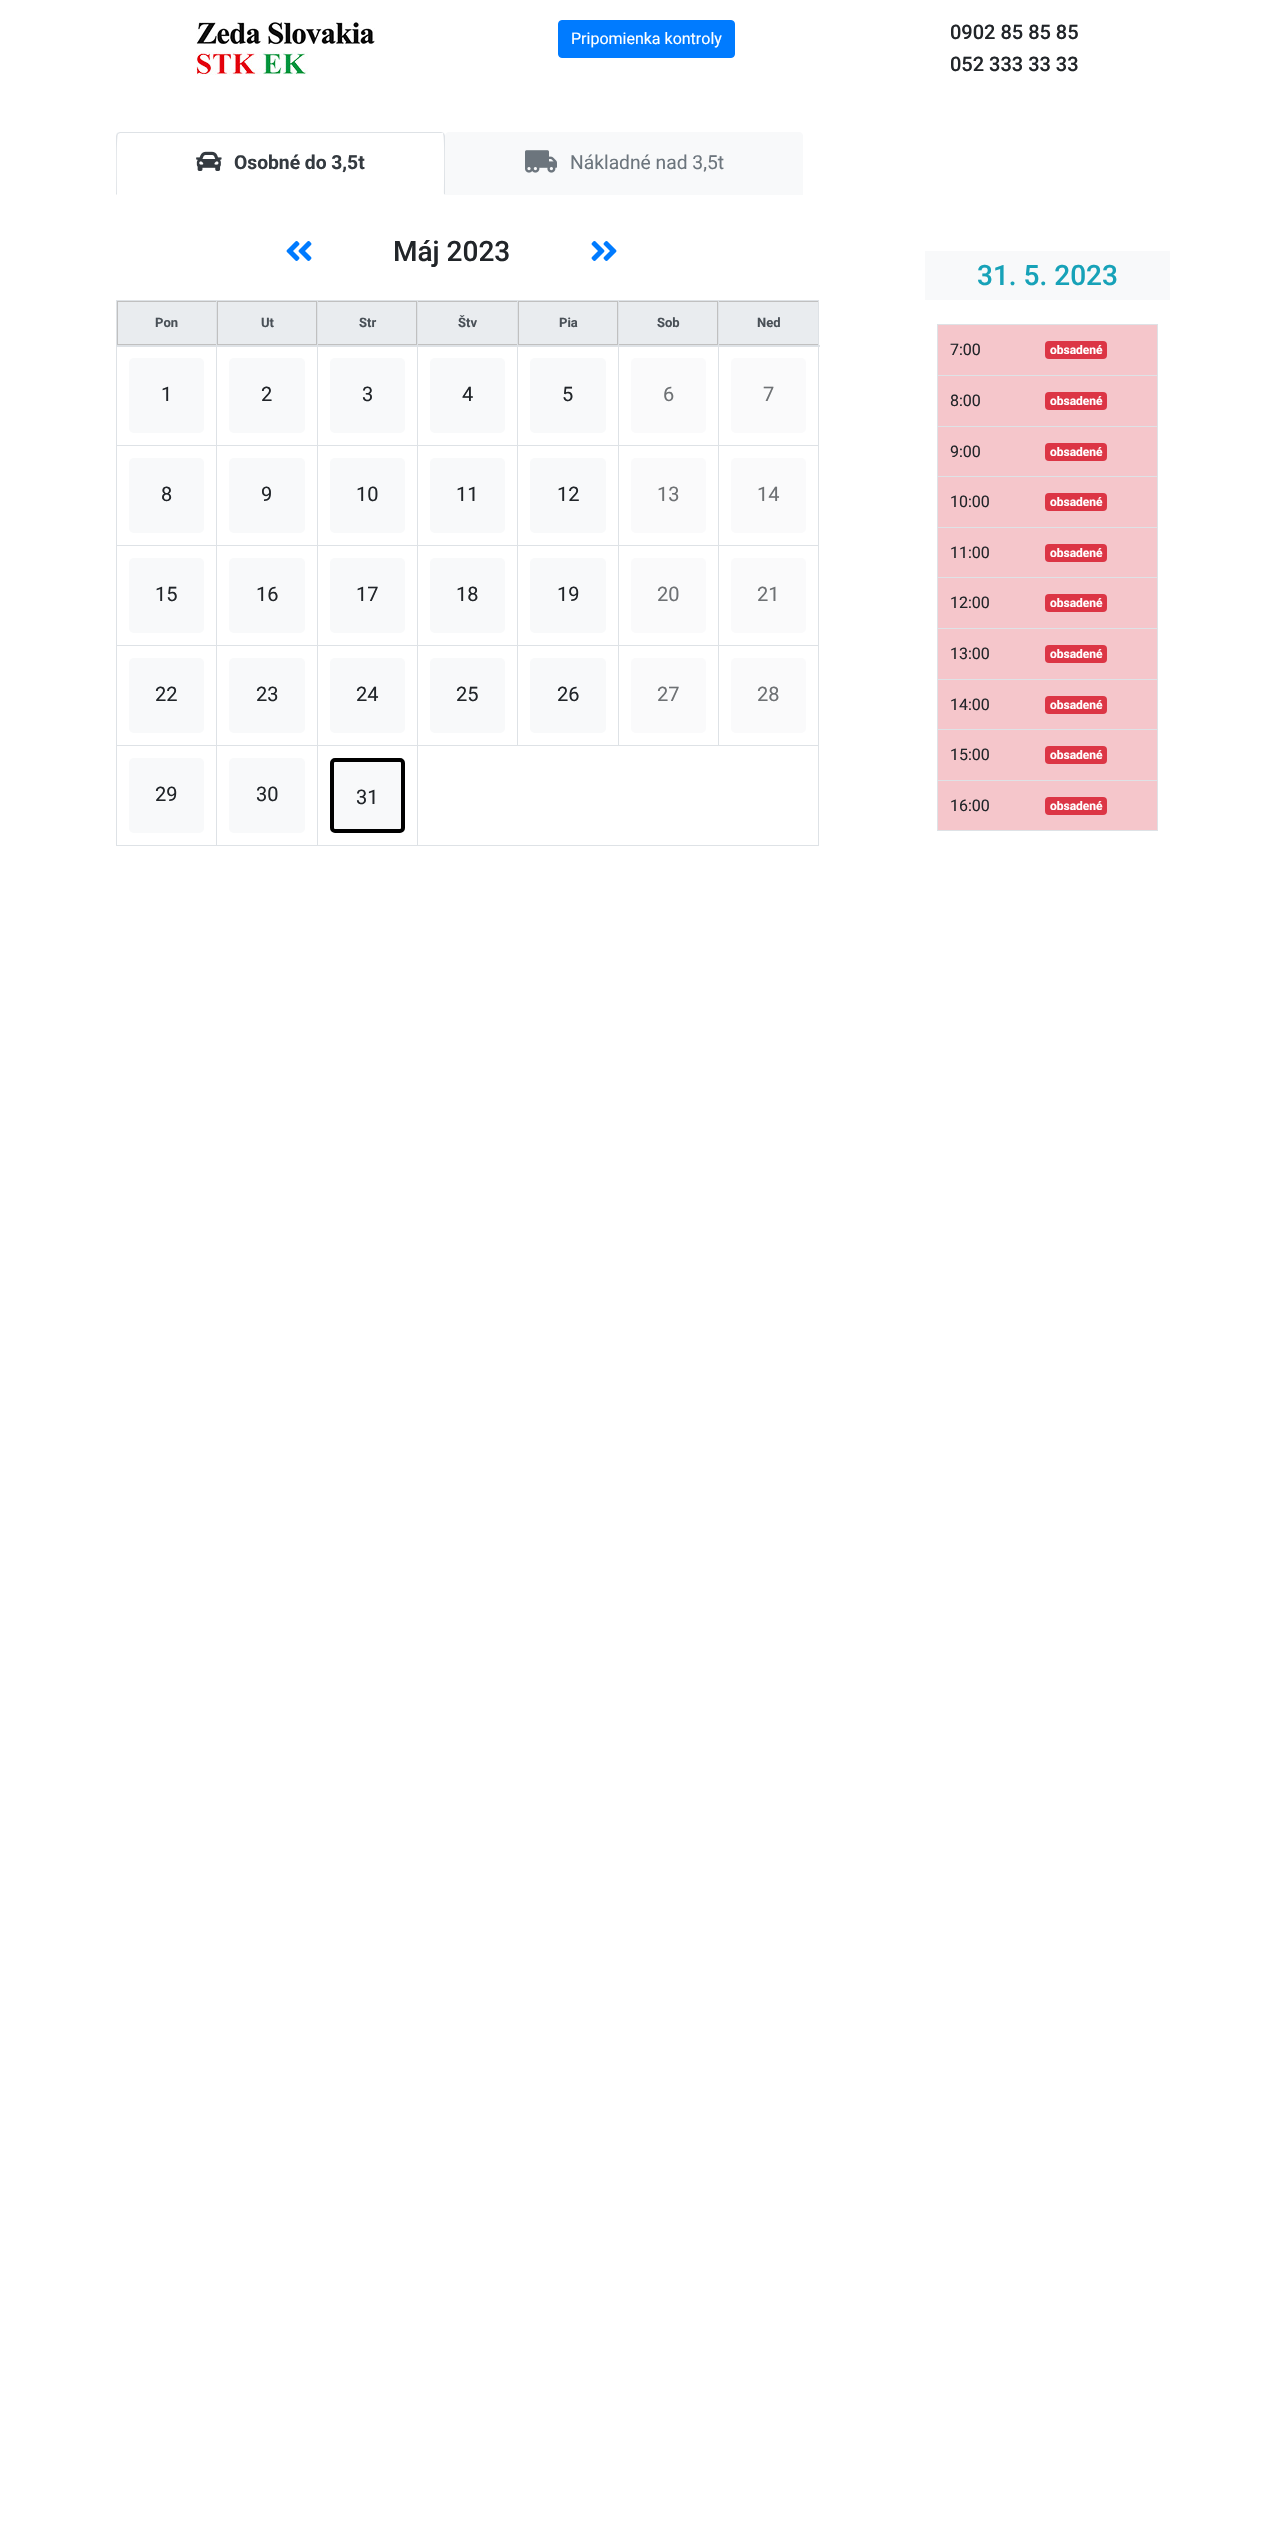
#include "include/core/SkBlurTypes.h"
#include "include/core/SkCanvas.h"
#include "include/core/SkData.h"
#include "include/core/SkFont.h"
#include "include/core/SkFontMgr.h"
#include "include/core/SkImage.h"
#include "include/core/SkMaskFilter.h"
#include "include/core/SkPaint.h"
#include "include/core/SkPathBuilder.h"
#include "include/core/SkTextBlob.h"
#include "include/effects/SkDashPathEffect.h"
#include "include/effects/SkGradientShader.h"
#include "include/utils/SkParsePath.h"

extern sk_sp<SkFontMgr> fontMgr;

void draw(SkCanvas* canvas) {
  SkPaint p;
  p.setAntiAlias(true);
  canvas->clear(SK_ColorWHITE);
  canvas->drawImageRect(SkImages::DeferredFromEncodedData(SkData::MakeFromFileName("images/1.png")), SkRect::MakeLTRB(196, 20, 375, 75), SkSamplingOptions());
  p.setColor(SkColorSetRGB(0, 123, 255));
  canvas->drawRoundRect(SkRect::MakeLTRB(558.5f, 20.5f, 734.5f, 57.5f), 3.5f, 3.5f, p);
  p.setStyle(SkPaint::kStroke_Style);
  p.setStrokeWidth(1);
  canvas->drawRoundRect(SkRect::MakeLTRB(558.5f, 20.5f, 734.5f, 57.5f), 3.5f, 3.5f, p);
  p.setStyle(SkPaint::kFill_Style);
  p.setColor(SkColorSetRGB(222, 226, 230));
  canvas->drawPath(SkPathBuilder().moveTo(120, 132).lineTo(117, 133).lineTo(118, 134).lineTo(120, 133).lineTo(443, 133).lineTo(443, 134).lineTo(444, 133).lineTo(441, 132).close().detach(), p);
  canvas->drawPath(SkPathBuilder().moveTo(445, 195).lineTo(445, 136).lineTo(444, 133).lineTo(443, 134).cubicTo(445, 136, 444, 187, 444, 194).close().detach(), p);
  p.setColor(SK_ColorWHITE);
  canvas->drawPath(SkPathBuilder().moveTo(445, 195).lineTo(444, 194).lineTo(117, 194).lineTo(116, 195).close().detach(), p);
  p.setColor(SkColorSetRGB(222, 226, 230));
  canvas->drawPath(SkPathBuilder().moveTo(116, 195).lineTo(117, 194).cubicTo(117, 187, 116, 136, 118, 134).lineTo(117, 133).lineTo(116, 136).close().detach(), p);
  canvas->drawImageRect(SkImages::DeferredFromEncodedData(SkData::MakeFromFileName("images/2.png")), SkRect::MakeLTRB(196, 151, 222, 171), SkSamplingOptions());
  p.setColor(SkColorSetRGB(248, 249, 250));
  canvas->drawPath(SkPathBuilder().moveTo(449, 132).lineTo(799, 132).cubicTo(801, 132, 803, 134, 803, 136).lineTo(803, 195).lineTo(445, 195).lineTo(445, 136).cubicTo(445, 134, 447, 132, 449, 132).close().detach(), p);
  canvas->drawImageRect(SkImages::DeferredFromEncodedData(SkData::MakeFromFileName("images/3.png")), SkRect::MakeLTRB(525, 150, 557, 173), SkSamplingOptions());
  canvas->drawImageRect(SkImages::DeferredFromEncodedData(SkData::MakeFromFileName("images/4.png")), SkRect::MakeLTRB(286, 241, 312, 261), SkSamplingOptions());
  canvas->drawImageRect(SkImages::DeferredFromEncodedData(SkData::MakeFromFileName("images/5.png")), SkRect::MakeLTRB(591, 241, 617, 261), SkSamplingOptions());
  p.setColor(SkColorSetRGB(222, 226, 230));
  canvas->drawRect(SkRect::MakeLTRB(116, 300, 819, 301), p);
  canvas->drawRect(SkRect::MakeLTRB(818, 300, 819, 846), p);
  canvas->drawRect(SkRect::MakeLTRB(116, 845, 819, 846), p);
  canvas->drawRect(SkRect::MakeLTRB(116, 300, 117, 846), p);
  p.setColor(SkColorSetRGB(192, 192, 192));
  canvas->drawRect(SkRect::MakeLTRB(117, 301, 818, 345), p);
  p.setColor(SkColorSetRGB(233, 236, 239));
  canvas->drawRect(SkRect::MakeLTRB(118, 302, 216, 344), p);
  canvas->drawRect(SkRect::MakeLTRB(218, 302, 316, 344), p);
  canvas->drawRect(SkRect::MakeLTRB(318, 302, 416, 344), p);
  canvas->drawRect(SkRect::MakeLTRB(418, 302, 517, 344), p);
  canvas->drawRect(SkRect::MakeLTRB(519, 302, 617, 344), p);
  canvas->drawRect(SkRect::MakeLTRB(619, 302, 717, 344), p);
  canvas->drawRect(SkRect::MakeLTRB(719, 302, 818, 344), p);
  p.setColor(SkColorSetRGB(222, 226, 230));
  canvas->drawRect(SkRect::MakeLTRB(718, 445, 819, 446), p);
  canvas->drawRect(SkRect::MakeLTRB(718, 545, 819, 546), p);
  canvas->drawRect(SkRect::MakeLTRB(718, 645, 819, 646), p);
  canvas->drawRect(SkRect::MakeLTRB(417, 745, 819, 746), p);
  canvas->drawRect(SkRect::MakeLTRB(718, 645, 719, 746), p);
  canvas->drawRect(SkRect::MakeLTRB(618, 645, 719, 646), p);
  canvas->drawRect(SkRect::MakeLTRB(718, 545, 719, 646), p);
  canvas->drawRect(SkRect::MakeLTRB(618, 545, 719, 546), p);
  canvas->drawRect(SkRect::MakeLTRB(718, 445, 719, 546), p);
  canvas->drawRect(SkRect::MakeLTRB(618, 445, 719, 446), p);
  canvas->drawRect(SkRect::MakeLTRB(618, 645, 619, 746), p);
  canvas->drawRect(SkRect::MakeLTRB(517, 645, 619, 646), p);
  canvas->drawRect(SkRect::MakeLTRB(618, 545, 619, 646), p);
  canvas->drawRect(SkRect::MakeLTRB(517, 545, 619, 546), p);
  canvas->drawRect(SkRect::MakeLTRB(618, 445, 619, 546), p);
  canvas->drawRect(SkRect::MakeLTRB(517, 445, 619, 446), p);
  canvas->drawRect(SkRect::MakeLTRB(517, 645, 518, 746), p);
  canvas->drawRect(SkRect::MakeLTRB(417, 645, 518, 646), p);
  canvas->drawRect(SkRect::MakeLTRB(517, 545, 518, 646), p);
  canvas->drawRect(SkRect::MakeLTRB(417, 545, 518, 546), p);
  canvas->drawRect(SkRect::MakeLTRB(517, 445, 518, 546), p);
  canvas->drawRect(SkRect::MakeLTRB(417, 445, 518, 446), p);
  canvas->drawRect(SkRect::MakeLTRB(417, 745, 418, 846), p);
  canvas->drawRect(SkRect::MakeLTRB(317, 745, 418, 746), p);
  canvas->drawRect(SkRect::MakeLTRB(417, 645, 418, 746), p);
  canvas->drawRect(SkRect::MakeLTRB(317, 645, 418, 646), p);
  canvas->drawRect(SkRect::MakeLTRB(417, 545, 418, 646), p);
  canvas->drawRect(SkRect::MakeLTRB(317, 545, 418, 546), p);
  canvas->drawRect(SkRect::MakeLTRB(417, 445, 418, 546), p);
  canvas->drawRect(SkRect::MakeLTRB(317, 445, 418, 446), p);
  canvas->drawRect(SkRect::MakeLTRB(317, 745, 318, 846), p);
  canvas->drawRect(SkRect::MakeLTRB(216, 745, 318, 746), p);
  canvas->drawRect(SkRect::MakeLTRB(317, 645, 318, 746), p);
  canvas->drawRect(SkRect::MakeLTRB(216, 645, 318, 646), p);
  canvas->drawRect(SkRect::MakeLTRB(317, 545, 318, 646), p);
  canvas->drawRect(SkRect::MakeLTRB(216, 545, 318, 546), p);
  canvas->drawRect(SkRect::MakeLTRB(317, 445, 318, 546), p);
  canvas->drawRect(SkRect::MakeLTRB(216, 445, 318, 446), p);
  canvas->drawRect(SkRect::MakeLTRB(216, 745, 217, 846), p);
  canvas->drawRect(SkRect::MakeLTRB(116, 745, 217, 746), p);
  canvas->drawRect(SkRect::MakeLTRB(216, 645, 217, 746), p);
  canvas->drawRect(SkRect::MakeLTRB(116, 645, 217, 646), p);
  canvas->drawRect(SkRect::MakeLTRB(216, 545, 217, 646), p);
  canvas->drawRect(SkRect::MakeLTRB(116, 545, 217, 546), p);
  canvas->drawRect(SkRect::MakeLTRB(216, 445, 217, 546), p);
  canvas->drawRect(SkRect::MakeLTRB(116, 445, 217, 446), p);
  canvas->drawRect(SkRect::MakeLTRB(216, 300, 217, 446), p);
  canvas->drawRect(SkRect::MakeLTRB(317, 300, 318, 446), p);
  canvas->drawRect(SkRect::MakeLTRB(417, 300, 418, 446), p);
  canvas->drawRect(SkRect::MakeLTRB(517, 300, 518, 446), p);
  canvas->drawRect(SkRect::MakeLTRB(618, 300, 619, 446), p);
  canvas->drawRect(SkRect::MakeLTRB(718, 300, 719, 446), p);
  canvas->drawRect(SkRect::MakeLTRB(116, 345, 820, 347), p);
  p.setColor(SkColorSetRGB(248, 249, 250));
  canvas->drawRoundRect(SkRect::MakeLTRB(129, 358, 204, 433), 5, 5, p);
  canvas->drawRoundRect(SkRect::MakeLTRB(229, 358, 305, 433), 5, 5, p);
  canvas->drawRoundRect(SkRect::MakeLTRB(330, 358, 405, 433), 5, 5, p);
  canvas->drawRoundRect(SkRect::MakeLTRB(430, 358, 505, 433), 5, 5, p);
  canvas->drawRoundRect(SkRect::MakeLTRB(530, 358, 606, 433), 5, 5, p);
  p.setColor(SkColorSetRGB(250, 250, 251));
  canvas->drawRoundRect(SkRect::MakeLTRB(631, 358, 706, 433), 5, 5, p);
  canvas->drawRoundRect(SkRect::MakeLTRB(731, 358, 806, 433), 5, 5, p);
  p.setColor(SkColorSetRGB(248, 249, 250));
  canvas->drawRoundRect(SkRect::MakeLTRB(129, 458, 204, 533), 5, 5, p);
  canvas->drawRoundRect(SkRect::MakeLTRB(229, 458, 305, 533), 5, 5, p);
  canvas->drawRoundRect(SkRect::MakeLTRB(330, 458, 405, 533), 5, 5, p);
  canvas->drawRoundRect(SkRect::MakeLTRB(430, 458, 505, 533), 5, 5, p);
  canvas->drawRoundRect(SkRect::MakeLTRB(530, 458, 606, 533), 5, 5, p);
  p.setColor(SkColorSetRGB(250, 250, 251));
  canvas->drawRoundRect(SkRect::MakeLTRB(631, 458, 706, 533), 5, 5, p);
  canvas->drawRoundRect(SkRect::MakeLTRB(731, 458, 806, 533), 5, 5, p);
  p.setColor(SkColorSetRGB(248, 249, 250));
  canvas->drawRoundRect(SkRect::MakeLTRB(129, 558, 204, 633), 5, 5, p);
  canvas->drawRoundRect(SkRect::MakeLTRB(229, 558, 305, 633), 5, 5, p);
  canvas->drawRoundRect(SkRect::MakeLTRB(330, 558, 405, 633), 5, 5, p);
  canvas->drawRoundRect(SkRect::MakeLTRB(430, 558, 505, 633), 5, 5, p);
  canvas->drawRoundRect(SkRect::MakeLTRB(530, 558, 606, 633), 5, 5, p);
  p.setColor(SkColorSetRGB(250, 250, 251));
  canvas->drawRoundRect(SkRect::MakeLTRB(631, 558, 706, 633), 5, 5, p);
  canvas->drawRoundRect(SkRect::MakeLTRB(731, 558, 806, 633), 5, 5, p);
  p.setColor(SkColorSetRGB(248, 249, 250));
  canvas->drawRoundRect(SkRect::MakeLTRB(129, 658, 204, 733), 5, 5, p);
  canvas->drawRoundRect(SkRect::MakeLTRB(229, 658, 305, 733), 5, 5, p);
  canvas->drawRoundRect(SkRect::MakeLTRB(330, 658, 405, 733), 5, 5, p);
  canvas->drawRoundRect(SkRect::MakeLTRB(430, 658, 505, 733), 5, 5, p);
  canvas->drawRoundRect(SkRect::MakeLTRB(530, 658, 606, 733), 5, 5, p);
  p.setColor(SkColorSetRGB(250, 250, 251));
  canvas->drawRoundRect(SkRect::MakeLTRB(631, 658, 706, 733), 5, 5, p);
  canvas->drawRoundRect(SkRect::MakeLTRB(731, 658, 806, 733), 5, 5, p);
  p.setColor(SkColorSetRGB(248, 249, 250));
  canvas->drawRoundRect(SkRect::MakeLTRB(129, 758, 204, 833), 5, 5, p);
  canvas->drawRoundRect(SkRect::MakeLTRB(229, 758, 305, 833), 5, 5, p);
  canvas->drawRoundRect(SkRect::MakeLTRB(332, 760, 403, 831), 3, 3, p);
  p.setStyle(SkPaint::kStroke_Style);
  p.setStrokeWidth(4);
  p.setColor(SK_ColorBLACK);
  canvas->drawRoundRect(SkRect::MakeLTRB(332, 760, 403, 831), 3, 3, p);
  p.setStyle(SkPaint::kFill_Style);
  p.setColor(SkColorSetRGB(248, 249, 250));
  canvas->drawRect(SkRect::MakeLTRB(925, 251, 1170, 300), p);
  p.setColor(SkColorSetRGB(222, 226, 230));
  canvas->drawRect(SkRect::MakeLTRB(937, 324, 1158, 325), p);
  canvas->drawRect(SkRect::MakeLTRB(1157, 324, 1158, 831), p);
  canvas->drawRect(SkRect::MakeLTRB(937, 830, 1158, 831), p);
  canvas->drawRect(SkRect::MakeLTRB(937, 324, 938, 831), p);
  p.setColor(SkColorSetRGB(245, 198, 203));
  canvas->drawRect(SkRect::MakeLTRB(938, 325, 1157, 375), p);
  p.setColor(SkColorSetRGB(220, 53, 69));
  canvas->drawRoundRect(SkRect::MakeLTRB(1045, 341, 1107, 359), 4, 4, p);
  p.setColor(SkColorSetRGB(245, 198, 203));
  canvas->drawRect(SkRect::MakeLTRB(938, 376, 1157, 426), p);
  p.setColor(SkColorSetRGB(222, 226, 230));
  canvas->drawRect(SkRect::MakeLTRB(937, 375, 1158, 376), p);
  p.setColor(SkColorSetRGB(220, 53, 69));
  canvas->drawRoundRect(SkRect::MakeLTRB(1045, 392, 1107, 410), 4, 4, p);
  p.setColor(SkColorSetRGB(245, 198, 203));
  canvas->drawRect(SkRect::MakeLTRB(938, 427, 1157, 476), p);
  p.setColor(SkColorSetRGB(222, 226, 230));
  canvas->drawRect(SkRect::MakeLTRB(937, 426, 1158, 427), p);
  p.setColor(SkColorSetRGB(220, 53, 69));
  canvas->drawRoundRect(SkRect::MakeLTRB(1045, 443, 1107, 461), 4, 4, p);
  p.setColor(SkColorSetRGB(245, 198, 203));
  canvas->drawRect(SkRect::MakeLTRB(938, 477, 1157, 527), p);
  p.setColor(SkColorSetRGB(222, 226, 230));
  canvas->drawRect(SkRect::MakeLTRB(937, 476, 1158, 477), p);
  p.setColor(SkColorSetRGB(220, 53, 69));
  canvas->drawRoundRect(SkRect::MakeLTRB(1045, 493, 1107, 511), 4, 4, p);
  p.setColor(SkColorSetRGB(245, 198, 203));
  canvas->drawRect(SkRect::MakeLTRB(938, 528, 1157, 577), p);
  p.setColor(SkColorSetRGB(222, 226, 230));
  canvas->drawRect(SkRect::MakeLTRB(937, 527, 1158, 528), p);
  p.setColor(SkColorSetRGB(220, 53, 69));
  canvas->drawRoundRect(SkRect::MakeLTRB(1045, 544, 1107, 562), 4, 4, p);
  p.setColor(SkColorSetRGB(245, 198, 203));
  canvas->drawRect(SkRect::MakeLTRB(938, 578, 1157, 628), p);
  p.setColor(SkColorSetRGB(222, 226, 230));
  canvas->drawRect(SkRect::MakeLTRB(937, 577, 1158, 578), p);
  p.setColor(SkColorSetRGB(220, 53, 69));
  canvas->drawRoundRect(SkRect::MakeLTRB(1045, 594, 1107, 612), 4, 4, p);
  p.setColor(SkColorSetRGB(245, 198, 203));
  canvas->drawRect(SkRect::MakeLTRB(938, 629, 1157, 679), p);
  p.setColor(SkColorSetRGB(222, 226, 230));
  canvas->drawRect(SkRect::MakeLTRB(937, 628, 1158, 629), p);
  p.setColor(SkColorSetRGB(220, 53, 69));
  canvas->drawRoundRect(SkRect::MakeLTRB(1045, 645, 1107, 663), 4, 4, p);
  p.setColor(SkColorSetRGB(245, 198, 203));
  canvas->drawRect(SkRect::MakeLTRB(938, 680, 1157, 729), p);
  p.setColor(SkColorSetRGB(222, 226, 230));
  canvas->drawRect(SkRect::MakeLTRB(937, 679, 1158, 680), p);
  p.setColor(SkColorSetRGB(220, 53, 69));
  canvas->drawRoundRect(SkRect::MakeLTRB(1045, 696, 1107, 714), 4, 4, p);
  p.setColor(SkColorSetRGB(245, 198, 203));
  canvas->drawRect(SkRect::MakeLTRB(938, 730, 1157, 780), p);
  p.setColor(SkColorSetRGB(222, 226, 230));
  canvas->drawRect(SkRect::MakeLTRB(937, 729, 1158, 730), p);
  p.setColor(SkColorSetRGB(220, 53, 69));
  canvas->drawRoundRect(SkRect::MakeLTRB(1045, 746, 1107, 764), 4, 4, p);
  p.setColor(SkColorSetRGB(245, 198, 203));
  canvas->drawRect(SkRect::MakeLTRB(938, 781, 1157, 830), p);
  p.setColor(SkColorSetRGB(222, 226, 230));
  canvas->drawRect(SkRect::MakeLTRB(937, 780, 1158, 781), p);
  p.setColor(SkColorSetRGB(220, 53, 69));
  canvas->drawRoundRect(SkRect::MakeLTRB(1045, 797, 1107, 815), 4, 4, p);
  SkFont font1(fontMgr->matchFamilyStyle("Roboto", SkFontStyle::Normal()), 16);
  font1.setSubpixel(true);
  p.setColor(SK_ColorWHITE);
  canvas->drawString("Pripomienka kontroly", 571, 44, font1, p);
  SkFont font2(fontMgr->matchFamilyStyle("Roboto", SkFontStyle(500, SkFontStyle::kNormal_Width, SkFontStyle::kUpright_Slant)), 20);
  font2.setSubpixel(true);
  p.setColor(SkColorSetRGB(33, 37, 41));
  canvas->drawString("0902 85 85 85", 950, 39, font2, p);
  canvas->drawString("052 333 33 33", 950, 71, font2, p);
  SkFont font3(fontMgr->matchFamilyStyle("Roboto", SkFontStyle::Bold()), 19.25f);
  font3.setSubpixel(true);
  p.setColor(SkColorSetRGB(52, 58, 64));
  canvas->drawString("Osobné do 3,5t", 234, 169, font3, p);
  SkFont font4(fontMgr->matchFamilyStyle("Roboto", SkFontStyle::Normal()), 19.25f);
  font4.setSubpixel(true);
  p.setColor(SkColorSetRGB(108, 117, 125));
  canvas->drawString("Nákladné nad 3,5t", 570, 169, font4, p);
  SkFont font5(fontMgr->matchFamilyStyle("Roboto", SkFontStyle(500, SkFontStyle::kNormal_Width, SkFontStyle::kUpright_Slant)), 28);
  font5.setSubpixel(true);
  p.setColor(SkColorSetRGB(33, 37, 41));
  canvas->drawString("Máj 2023", 393, 261, font5, p);
  SkFont font6(fontMgr->matchFamilyStyle("Roboto", SkFontStyle::Bold()), 13);
  font6.setSubpixel(true);
  p.setColor(SkColorSetRGB(73, 80, 87));
  canvas->drawString("Pon", 155, 327, font6, p);
  canvas->drawString("Ut", 261, 327, font6, p);
  canvas->drawString("Str", 359, 327, font6, p);
  canvas->drawString("Štv", 458, 327, font6, p);
  canvas->drawString("Pia", 559, 327, font6, p);
  canvas->drawString("Sob", 657, 327, font6, p);
  canvas->drawString("Ned", 757, 327, font6, p);
  SkFont font7(fontMgr->matchFamilyStyle("Roboto", SkFontStyle::Normal()), 20);
  font7.setSubpixel(true);
  p.setColor(SkColorSetRGB(33, 37, 41));
  canvas->drawString("1", 161, 401, font7, p);
  canvas->drawString("2", 261, 401, font7, p);
  canvas->drawString("3", 362, 401, font7, p);
  canvas->drawString("4", 462, 401, font7, p);
  canvas->drawString("5", 562, 401, font7, p);
  p.setColor(SkColorSetRGB(110, 113, 116));
  canvas->drawString("6", 663, 401, font7, p);
  canvas->drawString("7", 763, 401, font7, p);
  p.setColor(SkColorSetRGB(33, 37, 41));
  canvas->drawString("8", 161, 501, font7, p);
  canvas->drawString("9", 261, 501, font7, p);
  canvas->drawString("10", 356, 501, font7, p);
  canvas->drawString("11", 456, 501, font7, p);
  canvas->drawString("12", 557, 501, font7, p);
  p.setColor(SkColorSetRGB(110, 113, 116));
  canvas->drawString("13", 657, 501, font7, p);
  canvas->drawString("14", 757, 501, font7, p);
  p.setColor(SkColorSetRGB(33, 37, 41));
  canvas->drawString("15", 155, 601, font7, p);
  canvas->drawString("16", 256, 601, font7, p);
  canvas->drawString("17", 356, 601, font7, p);
  canvas->drawString("18", 456, 601, font7, p);
  canvas->drawString("19", 557, 601, font7, p);
  p.setColor(SkColorSetRGB(110, 113, 116));
  canvas->drawString("20", 657, 601, font7, p);
  canvas->drawString("21", 757, 601, font7, p);
  p.setColor(SkColorSetRGB(33, 37, 41));
  canvas->drawString("22", 155, 701, font7, p);
  canvas->drawString("23", 256, 701, font7, p);
  canvas->drawString("24", 356, 701, font7, p);
  canvas->drawString("25", 456, 701, font7, p);
  canvas->drawString("26", 557, 701, font7, p);
  p.setColor(SkColorSetRGB(110, 113, 116));
  canvas->drawString("27", 657, 701, font7, p);
  canvas->drawString("28", 757, 701, font7, p);
  p.setColor(SkColorSetRGB(33, 37, 41));
  canvas->drawString("29", 155, 801, font7, p);
  canvas->drawString("30", 256, 801, font7, p);
  canvas->drawString("31", 356, 804, font7, p);
  p.setColor(SkColorSetRGB(23, 162, 184));
  canvas->drawString("31. 5. 2023", 977, 285, font5, p);
  p.setColor(SkColorSetRGB(33, 37, 41));
  canvas->drawString("7:00", 950, 355, font1, p);
  SkFont font8(fontMgr->matchFamilyStyle("Roboto", SkFontStyle::Bold()), 12);
  font8.setSubpixel(true);
  p.setColor(SK_ColorWHITE);
  canvas->drawString("obsadené", 1050, 354, font8, p);
  p.setColor(SkColorSetRGB(33, 37, 41));
  canvas->drawString("8:00", 950, 406, font1, p);
  p.setColor(SK_ColorWHITE);
  canvas->drawString("obsadené", 1050, 405, font8, p);
  p.setColor(SkColorSetRGB(33, 37, 41));
  canvas->drawString("9:00", 950, 457, font1, p);
  p.setColor(SK_ColorWHITE);
  canvas->drawString("obsadené", 1050, 456, font8, p);
  p.setColor(SkColorSetRGB(33, 37, 41));
  canvas->drawString("10:00", 950, 507, font1, p);
  p.setColor(SK_ColorWHITE);
  canvas->drawString("obsadené", 1050, 506, font8, p);
  p.setColor(SkColorSetRGB(33, 37, 41));
  canvas->drawString("11:00", 950, 558, font1, p);
  p.setColor(SK_ColorWHITE);
  canvas->drawString("obsadené", 1050, 557, font8, p);
  p.setColor(SkColorSetRGB(33, 37, 41));
  canvas->drawString("12:00", 950, 608, font1, p);
  p.setColor(SK_ColorWHITE);
  canvas->drawString("obsadené", 1050, 607, font8, p);
  p.setColor(SkColorSetRGB(33, 37, 41));
  canvas->drawString("13:00", 950, 659, font1, p);
  p.setColor(SK_ColorWHITE);
  canvas->drawString("obsadené", 1050, 658, font8, p);
  p.setColor(SkColorSetRGB(33, 37, 41));
  canvas->drawString("14:00", 950, 710, font1, p);
  p.setColor(SK_ColorWHITE);
  canvas->drawString("obsadené", 1050, 709, font8, p);
  p.setColor(SkColorSetRGB(33, 37, 41));
  canvas->drawString("15:00", 950, 760, font1, p);
  p.setColor(SK_ColorWHITE);
  canvas->drawString("obsadené", 1050, 759, font8, p);
  p.setColor(SkColorSetRGB(33, 37, 41));
  canvas->drawString("16:00", 950, 811, font1, p);
  p.setColor(SK_ColorWHITE);
  canvas->drawString("obsadené", 1050, 810, font8, p);
}
